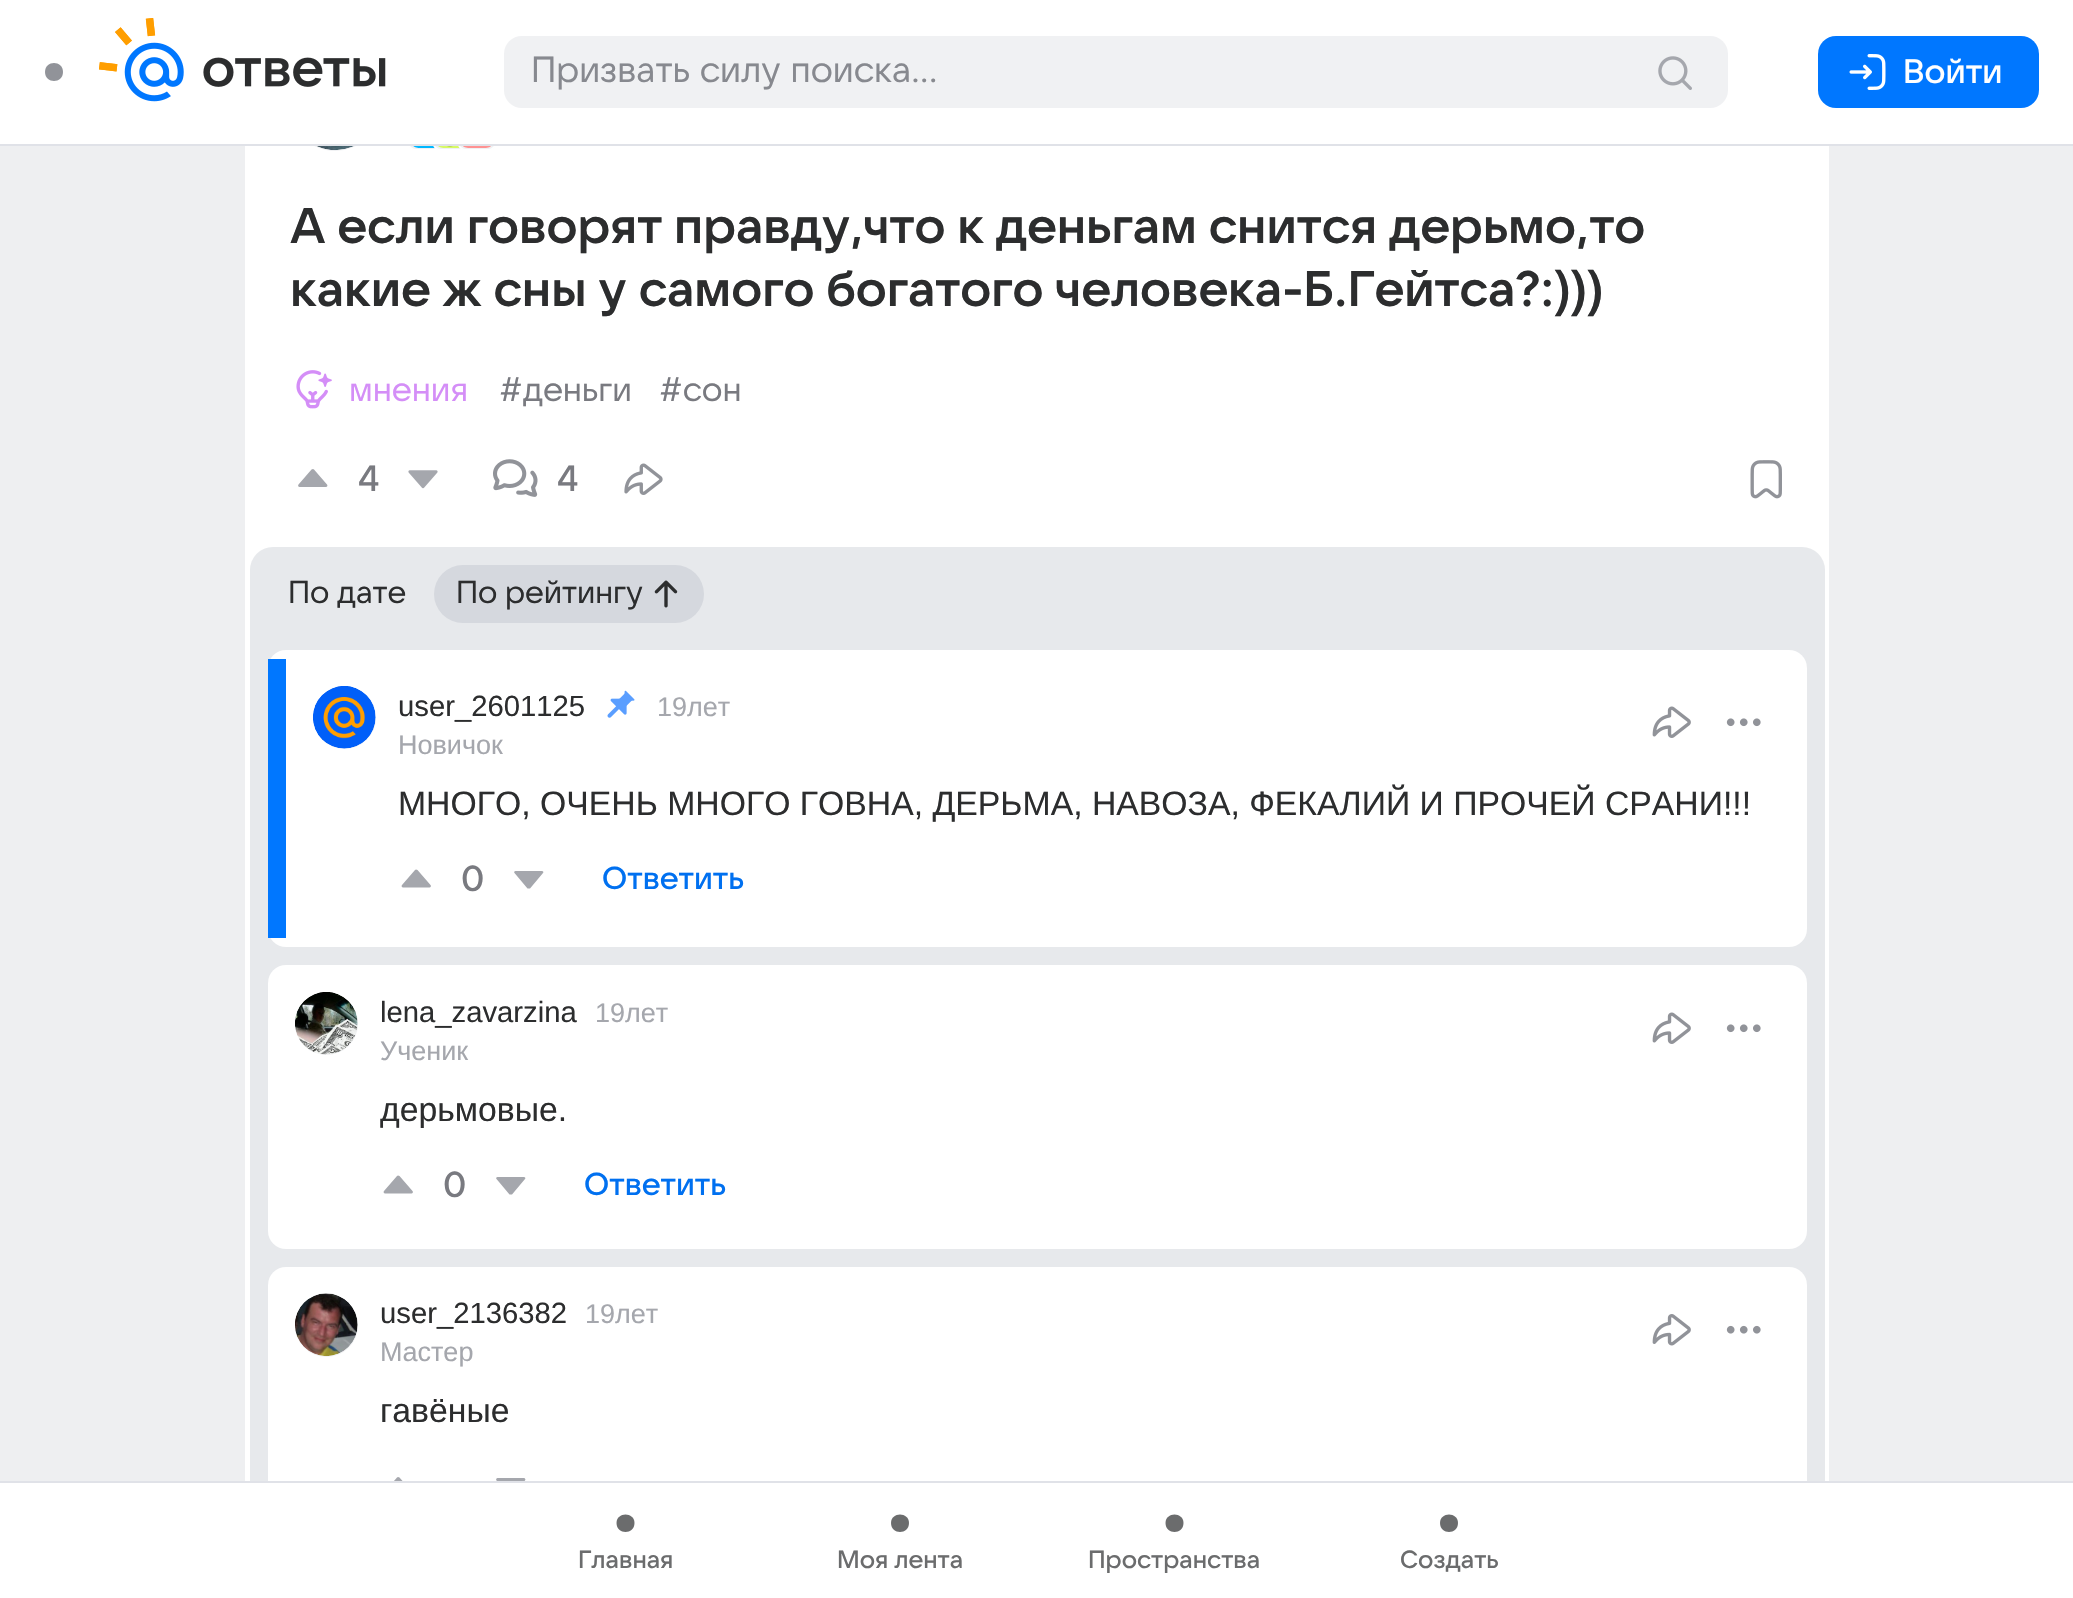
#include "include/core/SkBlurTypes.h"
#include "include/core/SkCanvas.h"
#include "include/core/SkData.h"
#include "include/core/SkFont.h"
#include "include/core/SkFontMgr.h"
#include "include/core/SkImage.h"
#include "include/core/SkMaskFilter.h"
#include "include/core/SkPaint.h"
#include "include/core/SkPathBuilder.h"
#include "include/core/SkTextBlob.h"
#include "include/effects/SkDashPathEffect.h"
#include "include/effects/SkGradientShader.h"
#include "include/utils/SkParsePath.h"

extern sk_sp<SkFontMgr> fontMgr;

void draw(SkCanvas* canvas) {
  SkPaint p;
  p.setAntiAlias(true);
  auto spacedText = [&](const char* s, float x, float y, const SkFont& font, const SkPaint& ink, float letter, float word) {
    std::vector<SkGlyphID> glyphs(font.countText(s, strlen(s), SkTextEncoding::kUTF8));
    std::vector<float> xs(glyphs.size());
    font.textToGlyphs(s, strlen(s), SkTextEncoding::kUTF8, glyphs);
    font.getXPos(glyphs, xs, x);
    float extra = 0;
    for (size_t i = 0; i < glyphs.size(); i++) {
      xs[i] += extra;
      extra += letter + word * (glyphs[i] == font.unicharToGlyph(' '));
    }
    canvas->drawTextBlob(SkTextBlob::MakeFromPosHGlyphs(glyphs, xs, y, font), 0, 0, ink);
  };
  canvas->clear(SkColorSetRGB(238, 239, 241));
  p.setColor(SK_ColorWHITE);
  canvas->drawRect(SkRect::MakeLTRB(245, 146, 1829, 1481), p);
  p.setColor(SkColorSetRGB(240, 241, 243));
  canvas->drawCircle(335, 106, 45, p);
  canvas->drawRoundRect(SkRect::MakeLTRB(408, 111, 447, 150), 8, 8, p);
  p.setStyle(SkPaint::kStroke_Style);
  p.setStrokeWidth(2);
  p.setColor(SK_ColorWHITE);
  canvas->drawRoundRect(SkRect::MakeLTRB(408, 111, 447, 150), 8, 8, p);
  canvas->drawImageRect(SkImages::DeferredFromEncodedData(SkData::MakeFromFileName("images/5.png")), SkRect::MakeLTRB(413, 146, 435, 148), SkSamplingOptions());
  p.setStyle(SkPaint::kFill_Style);
  p.setColor(SkColorSetRGB(240, 241, 243));
  canvas->drawRoundRect(SkRect::MakeLTRB(433, 111, 472, 150), 8, 8, p);
  p.setStyle(SkPaint::kStroke_Style);
  p.setColor(SK_ColorWHITE);
  canvas->drawRoundRect(SkRect::MakeLTRB(433, 111, 472, 150), 8, 8, p);
  canvas->drawImageRect(SkImages::DeferredFromEncodedData(SkData::MakeFromFileName("images/6.png")), SkRect::MakeLTRB(438, 146, 460, 148), SkSamplingOptions());
  p.setStyle(SkPaint::kFill_Style);
  p.setColor(SkColorSetRGB(240, 241, 243));
  canvas->drawRoundRect(SkRect::MakeLTRB(458, 111, 496, 150), 8, 8, p);
  p.setStyle(SkPaint::kStroke_Style);
  p.setColor(SK_ColorWHITE);
  canvas->drawRoundRect(SkRect::MakeLTRB(458, 111, 496, 150), 8, 8, p);
  p.setStyle(SkPaint::kFill_Style);
  canvas->drawRect(SkRect::MakeLTRB(0, 0, 2073, 144), p);
  p.setColor(SkColorSetRGB(224, 226, 232));
  canvas->drawRect(SkRect::MakeLTRB(0, 144, 2073, 146), p);
  p.setColor(SkColorSetRGB(145, 147, 153));
  canvas->drawPath(SkPathBuilder().moveTo(63, 72).cubicTo(63, 84, 45, 84, 45, 72).cubicTo(45, 60, 63, 60, 63, 72).detach(), p);
  canvas->drawImageRect(SkImages::DeferredFromEncodedData(SkData::MakeFromFileName("images/1.png")), SkRect::MakeLTRB(99, 18, 386, 102), SkSamplingOptions());
  p.setColor(SkColorSetRGB(240, 241, 243));
  canvas->drawRoundRect(SkRect::MakeLTRB(504, 36, 1728, 108), 18, 18, p);
  canvas->drawImageRect(SkImages::DeferredFromEncodedData(SkData::MakeFromFileName("images/2.png")), SkRect::MakeLTRB(1658, 56, 1692, 90), SkSamplingOptions());
  p.setColor(SkColorSetRGB(0, 119, 255));
  canvas->drawRoundRect(SkRect::MakeLTRB(1818, 36, 2039, 108), 18, 18, p);
  canvas->drawImageRect(SkImages::DeferredFromEncodedData(SkData::MakeFromFileName("images/3.png")), SkRect::MakeLTRB(1849, 54, 1886, 90), SkSamplingOptions());
  canvas->drawImageRect(SkImages::DeferredFromEncodedData(SkData::MakeFromFileName("images/4.png")), SkRect::MakeLTRB(317, 146, 354, 150), SkSamplingOptions());
  canvas->drawImageRect(SkImages::DeferredFromEncodedData(SkData::MakeFromFileName("images/7.png")), SkRect::MakeLTRB(463, 146, 491, 148), SkSamplingOptions());
  canvas->drawImageRect(SkImages::DeferredFromEncodedData(SkData::MakeFromFileName("images/8.png")), SkRect::MakeLTRB(296, 370, 332, 409), SkSamplingOptions());
  p.setColor(SkColorSetRGB(165, 167, 173));
  canvas->drawPath(SkPathBuilder().moveTo(299.5f, 487).cubicTo(298.5f, 487, 297.5f, 485.5f, 298.5f, 484.5f).lineTo(311.5f, 469.5f).lineTo(313, 469).lineTo(314, 469.5f).lineTo(327, 484.5f).cubicTo(328, 485.5f, 327, 487, 326, 487).close().detach(), p);
  canvas->drawImageRect(SkImages::DeferredFromEncodedData(SkData::MakeFromFileName("images/9.png")), SkRect::MakeLTRB(408, 470, 438, 489), SkSamplingOptions());
  canvas->drawImageRect(SkImages::DeferredFromEncodedData(SkData::MakeFromFileName("images/10.png")), SkRect::MakeLTRB(493, 459, 538, 497), SkSamplingOptions());
  canvas->drawImageRect(SkImages::DeferredFromEncodedData(SkData::MakeFromFileName("images/11.png")), SkRect::MakeLTRB(624, 463, 663, 495), SkSamplingOptions());
  canvas->drawImageRect(SkImages::DeferredFromEncodedData(SkData::MakeFromFileName("images/12.png")), SkRect::MakeLTRB(1750, 460, 1782, 499), SkSamplingOptions());
  p.setColor(SkColorSetRGB(231, 233, 236));
  canvas->drawRoundRect(SkRect::MakeLTRB(250, 547, 1825, 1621), 23, 23, p);
  p.setColor(SkColorSetRGB(213, 216, 222));
  canvas->drawRoundRect(SkRect::MakeLTRB(434, 565, 704, 623), 29, 29, p);
  canvas->drawImageRect(SkImages::DeferredFromEncodedData(SkData::MakeFromFileName("images/13.png")), SkRect::MakeLTRB(654, 580, 678, 608), SkSamplingOptions());
  p.setColor(SK_ColorWHITE);
  canvas->drawRoundRect(SkRect::MakeLTRB(268, 650, 1807, 947), 18, 18, p);
  p.setColor(SkColorSetRGB(0, 119, 255));
  canvas->drawRect(SkRect::MakeLTRB(268, 659, 286, 938), p);
  p.setColor(SkColorSetRGB(240, 241, 243));
  canvas->drawCircle(344.5f, 717.5f, 31.5f, p);
  canvas->drawImageRect(SkImages::DeferredFromEncodedData(SkData::MakeFromFileName("images/14.png")), SkRect::MakeLTRB(313, 686, 376, 749), SkSamplingOptions());
  canvas->drawImageRect(SkImages::DeferredFromEncodedData(SkData::MakeFromFileName("images/15.png")), SkRect::MakeLTRB(607, 690, 635, 718), SkSamplingOptions());
  canvas->drawImageRect(SkImages::DeferredFromEncodedData(SkData::MakeFromFileName("images/16.png")), SkRect::MakeLTRB(1652, 706, 1691, 738), SkSamplingOptions());
  canvas->drawImageRect(SkImages::DeferredFromEncodedData(SkData::MakeFromFileName("images/17.png")), SkRect::MakeLTRB(1726, 718, 1761, 727), SkSamplingOptions());
  p.setColor(SkColorSetRGB(165, 167, 173));
  canvas->drawPath(SkPathBuilder().moveTo(403, 887.5f).cubicTo(402, 887.5f, 401, 886, 402, 885).lineTo(415, 870).lineTo(416, 869.5f).lineTo(417.5f, 870).lineTo(430.5f, 885).cubicTo(431.5f, 886, 430.5f, 887.5f, 429.5f, 887.5f).close().detach(), p);
  canvas->drawPath(SkPathBuilder().moveTo(542, 871).cubicTo(543, 871, 544, 872, 543, 873).lineTo(530, 888.5f).lineTo(529, 888.5f).lineTo(527.5f, 888.5f).lineTo(514.5f, 873).cubicTo(513.5f, 872, 514.5f, 871, 515.5f, 871).close().detach(), p);
  p.setColor(SK_ColorWHITE);
  canvas->drawRoundRect(SkRect::MakeLTRB(268, 965, 1807, 1249), 18, 18, p);
  p.setColor(SkColorSetRGB(240, 241, 243));
  canvas->drawCircle(326.5f, 1023.5f, 31.5f, p);
  canvas->drawImageRect(SkImages::DeferredFromEncodedData(SkData::MakeFromFileName("images/18.png")), SkRect::MakeLTRB(295, 992, 358, 1055), SkSamplingOptions());
  canvas->drawImageRect(SkImages::DeferredFromEncodedData(SkData::MakeFromFileName("images/16.png")), SkRect::MakeLTRB(1652, 1012, 1691, 1044), SkSamplingOptions());
  canvas->drawImageRect(SkImages::DeferredFromEncodedData(SkData::MakeFromFileName("images/17.png")), SkRect::MakeLTRB(1726, 1024, 1761, 1033), SkSamplingOptions());
  p.setColor(SkColorSetRGB(165, 167, 173));
  canvas->drawPath(SkPathBuilder().moveTo(385, 1193.5f).cubicTo(384, 1193.5f, 383, 1192, 384, 1191).lineTo(397, 1176).lineTo(398, 1175.5f).lineTo(399.5f, 1176).lineTo(412.5f, 1191).cubicTo(413.5f, 1192, 412.5f, 1193.5f, 411.5f, 1193.5f).close().detach(), p);
  canvas->drawPath(SkPathBuilder().moveTo(524, 1177).cubicTo(525, 1177, 526, 1178, 525, 1179).lineTo(512, 1194.5f).lineTo(511, 1194.5f).lineTo(509.5f, 1194.5f).lineTo(496.5f, 1179).cubicTo(495.5f, 1178, 496.5f, 1177, 497.5f, 1177).close().detach(), p);
  p.setColor(SK_ColorWHITE);
  canvas->drawRoundRect(SkRect::MakeLTRB(268, 1267, 1807, 1550), 18, 18, p);
  p.setColor(SkColorSetRGB(240, 241, 243));
  canvas->drawCircle(326.5f, 1325.5f, 31.5f, p);
  canvas->drawImageRect(SkImages::DeferredFromEncodedData(SkData::MakeFromFileName("images/19.png")), SkRect::MakeLTRB(295, 1293, 358, 1356), SkSamplingOptions());
  canvas->drawImageRect(SkImages::DeferredFromEncodedData(SkData::MakeFromFileName("images/20.png")), SkRect::MakeLTRB(1652, 1314, 1691, 1346), SkSamplingOptions());
  canvas->drawImageRect(SkImages::DeferredFromEncodedData(SkData::MakeFromFileName("images/21.png")), SkRect::MakeLTRB(1726, 1325, 1761, 1334), SkSamplingOptions());
  p.setColor(SkColorSetRGB(165, 167, 173));
  canvas->drawPath(SkPathBuilder().moveTo(385, 1495).cubicTo(384, 1495, 383, 1493.5f, 384, 1492.5f).lineTo(397, 1477.5f).lineTo(398, 1477).lineTo(399.5f, 1477.5f).lineTo(412.5f, 1492.5f).cubicTo(413.5f, 1493.5f, 412.5f, 1495, 411.5f, 1495).close().detach(), p);
  canvas->drawPath(SkPathBuilder().moveTo(524, 1478).cubicTo(525, 1478, 526, 1479.5f, 525, 1480.5f).lineTo(512, 1496).lineTo(511, 1496).lineTo(509.5f, 1496).lineTo(496.5f, 1480.5f).cubicTo(495.5f, 1479.5f, 496.5f, 1478, 497.5f, 1478).close().detach(), p);
  p.setColor(SK_ColorWHITE);
  canvas->drawRect(SkRect::MakeLTRB(0, 1483, 2073, 1598), p);
  p.setColor(SkColorSetRGB(224, 226, 232));
  canvas->drawRect(SkRect::MakeLTRB(0, 1481, 2073, 1483), p);
  p.setColor(SkColorSetRGB(107, 108, 109));
  canvas->drawPath(SkPathBuilder().moveTo(634.5f, 1523).cubicTo(634.5f, 1535, 616.5f, 1535, 616.5f, 1523).cubicTo(616.5f, 1511.5f, 634.5f, 1511.5f, 634.5f, 1523).detach(), p);
  canvas->drawPath(SkPathBuilder().moveTo(909, 1523).cubicTo(909, 1535, 891, 1535, 891, 1523).cubicTo(891, 1511.5f, 909, 1511.5f, 909, 1523).detach(), p);
  canvas->drawPath(SkPathBuilder().moveTo(1183.5f, 1523).cubicTo(1183.5f, 1535, 1165.5f, 1535, 1165.5f, 1523).cubicTo(1165.5f, 1511.5f, 1183.5f, 1511.5f, 1183.5f, 1523).detach(), p);
  canvas->drawPath(SkPathBuilder().moveTo(1458, 1523).cubicTo(1458, 1535, 1440, 1535, 1440, 1523).cubicTo(1440, 1511.5f, 1458, 1511.5f, 1458, 1523).detach(), p);
  SkFont font1(fontMgr->matchFamilyStyle("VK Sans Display", SkFontStyle::Normal()), 36);
  font1.setSubpixel(true);
  p.setColor(SkColorSetRGB(135, 137, 143));
  spacedText("Призвать силу поиска...", 531, 82, font1, p, 0, 1);
  SkFont font2(fontMgr->matchFamilyStyle("VK Sans Display", SkFontStyle(500, SkFontStyle::kNormal_Width, SkFontStyle::kUpright_Slant)), 33.75f);
  font2.setSubpixel(true);
  p.setColor(SK_ColorWHITE);
  canvas->drawString("Войти", 1903, 83, font2, p);
  SkFont font3(fontMgr->matchFamilyStyle("VK Sans Display", SkFontStyle(600, SkFontStyle::kNormal_Width, SkFontStyle::kUpright_Slant)), 49.5f);
  font3.setSubpixel(true);
  p.setColor(SkColorSetRGB(44, 45, 46));
  canvas->drawString("А если говорят правду,что к деньгам снится дерьмо,то", 290, 243, font3, p);
  canvas->drawString("какие ж сны у самого богатого человека-Б.Гейтса?:)))", 290, 306, font3, p);
  SkFont font4(fontMgr->matchFamilyStyle("VK Sans Display", SkFontStyle::Normal()), 33.75f);
  font4.setSubpixel(true);
  p.setColor(SkColorSetRGB(212, 142, 247));
  canvas->drawString("мнения", 349, 401, font4, p);
  p.setColor(SkColorSetRGB(121, 122, 128));
  canvas->drawString("#деньги", 499, 401, font4, p);
  canvas->drawString("#сон", 659, 401, font4, p);
  SkFont font5(fontMgr->matchFamilyStyle("VK Sans Display", SkFontStyle(500, SkFontStyle::kNormal_Width, SkFontStyle::kUpright_Slant)), 36);
  font5.setSubpixel(true);
  canvas->drawString("4", 358, 491, font5, p);
  canvas->drawString("4", 557, 491, font5, p);
  SkFont font6(fontMgr->matchFamilyStyle("VK Sans Display", SkFontStyle::Normal()), 31.5f);
  font6.setSubpixel(true);
  p.setColor(SkColorSetRGB(44, 45, 46));
  canvas->drawString("По дате", 288, 603, font6, p);
  canvas->drawString("По рейтингу", 456, 603, font6, p);
  SkFont font7(fontMgr->matchFamilyStyle("Liberation Sans", SkFontStyle::Normal()), 29.25f);
  font7.setSubpixel(true);
  canvas->drawString("user_2601125", 398, 716, font7, p);
  SkFont font8(fontMgr->matchFamilyStyle("Liberation Sans", SkFontStyle::Normal()), 27);
  font8.setSubpixel(true);
  p.setColor(SkColorSetRGB(165, 167, 173));
  canvas->drawString("Новичок", 398, 754, font8, p);
  canvas->drawString("19лет", 657, 716, font8, p);
  SkFont font9(fontMgr->matchFamilyStyle("Liberation Sans", SkFontStyle::Normal()), 33.75f);
  font9.setSubpixel(true);
  p.setColor(SkColorSetRGB(44, 45, 46));
  canvas->drawString("МНОГО, ОЧЕНЬ МНОГО ГОВНА, ДЕРЬМА, НАВОЗА, ФЕКАЛИЙ И ПРОЧЕЙ СРАНИ!!!", 398, 815, font9, p);
  p.setColor(SkColorSetRGB(121, 122, 128));
  canvas->drawString("0", 461, 891, font5, p);
  SkFont font10(fontMgr->matchFamilyStyle("VK Sans Display", SkFontStyle(500, SkFontStyle::kNormal_Width, SkFontStyle::kUpright_Slant)), 31.5f);
  font10.setSubpixel(true);
  p.setColor(SkColorSetRGB(0, 112, 240));
  canvas->drawString("Ответить", 602, 889, font10, p);
  p.setColor(SkColorSetRGB(44, 45, 46));
  canvas->drawString("lena_zavarzina", 380, 1022, font7, p);
  p.setColor(SkColorSetRGB(165, 167, 173));
  canvas->drawString("Ученик", 380, 1060, font8, p);
  canvas->drawString("19лет", 595, 1022, font8, p);
  p.setColor(SkColorSetRGB(44, 45, 46));
  canvas->drawString("дерьмовые.", 380, 1121, font9, p);
  p.setColor(SkColorSetRGB(121, 122, 128));
  canvas->drawString("0", 443, 1197, font5, p);
  p.setColor(SkColorSetRGB(0, 112, 240));
  canvas->drawString("Ответить", 584, 1195, font10, p);
  p.setColor(SkColorSetRGB(44, 45, 46));
  canvas->drawString("user_2136382", 380, 1323, font7, p);
  p.setColor(SkColorSetRGB(165, 167, 173));
  canvas->drawString("Мастер", 380, 1361, font8, p);
  canvas->drawString("19лет", 585, 1323, font8, p);
  p.setColor(SkColorSetRGB(44, 45, 46));
  canvas->drawString("гавёные", 380, 1422, font9, p);
  SkFont font11(fontMgr->matchFamilyStyle("VK Sans Display", SkFontStyle(500, SkFontStyle::kNormal_Width, SkFontStyle::kUpright_Slant)), 24.75f);
  font11.setSubpixel(true);
  p.setColor(SkColorSetRGB(107, 108, 109));
  canvas->drawString("Главная", 578, 1568, font11, p);
  canvas->drawString("Моя лента", 837, 1568, font11, p);
  canvas->drawString("Пространства", 1088, 1568, font11, p);
  canvas->drawString("Создать", 1400, 1568, font11, p);
}
